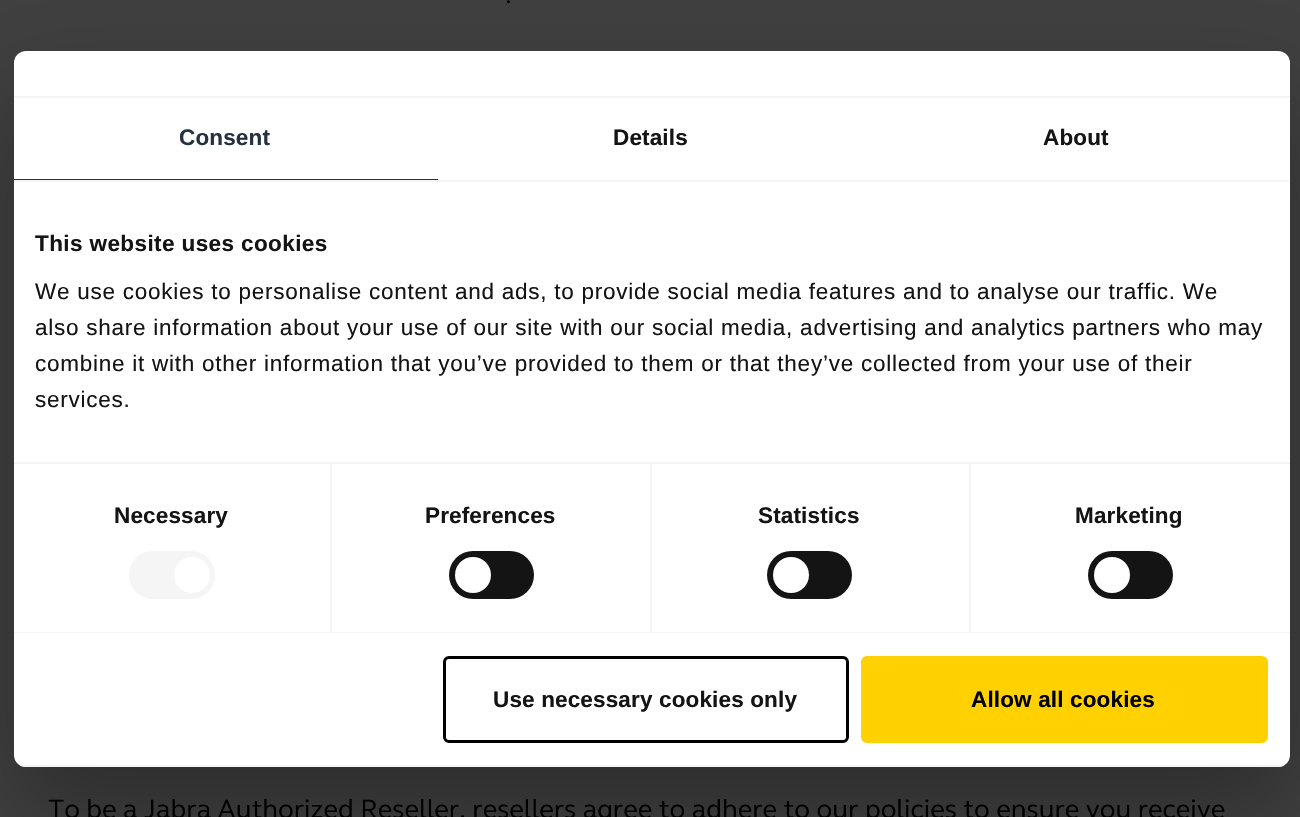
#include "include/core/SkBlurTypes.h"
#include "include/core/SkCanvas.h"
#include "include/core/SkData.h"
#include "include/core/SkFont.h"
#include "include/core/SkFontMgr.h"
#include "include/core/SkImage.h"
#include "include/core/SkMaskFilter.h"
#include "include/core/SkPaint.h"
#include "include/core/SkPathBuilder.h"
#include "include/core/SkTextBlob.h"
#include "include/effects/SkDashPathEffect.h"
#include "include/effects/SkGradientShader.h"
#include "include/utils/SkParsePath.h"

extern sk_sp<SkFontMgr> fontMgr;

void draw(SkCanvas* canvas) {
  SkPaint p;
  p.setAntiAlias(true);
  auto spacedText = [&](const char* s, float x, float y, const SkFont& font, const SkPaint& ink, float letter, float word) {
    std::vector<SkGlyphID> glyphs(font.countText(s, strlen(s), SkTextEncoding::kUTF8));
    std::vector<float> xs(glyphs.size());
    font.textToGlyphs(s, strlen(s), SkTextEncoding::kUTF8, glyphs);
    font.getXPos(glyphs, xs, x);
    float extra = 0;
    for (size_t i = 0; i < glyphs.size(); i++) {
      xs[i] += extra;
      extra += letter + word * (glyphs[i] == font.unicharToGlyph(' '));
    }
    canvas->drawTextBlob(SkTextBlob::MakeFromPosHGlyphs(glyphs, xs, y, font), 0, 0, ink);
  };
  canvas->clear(SkColorSetRGB(64, 64, 64));
  p.setColor(SkColorSetARGB(77, 0, 0, 0));
  p.setMaskFilter(SkMaskFilter::MakeBlur(kNormal_SkBlurStyle, 51));
  canvas->drawRoundRect(SkRect::MakeLTRB(14, 99, 1290, 815), 12, 12, p);
  p.setMaskFilter(nullptr);
  p.setColor(SK_ColorWHITE);
  canvas->drawRoundRect(SkRect::MakeLTRB(14, 51, 1290, 767), 12, 12, p);
  p.setColor(SkColorSetRGB(245, 245, 245));
  canvas->drawRect(SkRect::MakeLTRB(14, 96, 1290, 98), p);
  canvas->drawRect(SkRect::MakeLTRB(14, 180, 1290, 182), p);
  p.setColor(SkColorSetRGB(37, 49, 65));
  canvas->drawRect(SkRect::MakeLTRB(14, 179, 438, 180), p);
  p.setColor(SkColorSetRGB(245, 245, 245));
  canvas->drawRect(SkRect::MakeLTRB(14, 462, 1290, 464), p);
  canvas->drawRect(SkRect::MakeLTRB(14, 632, 1290, 633), p);
  canvas->drawRect(SkRect::MakeLTRB(330, 464, 332, 632), p);
  canvas->drawRoundRect(SkRect::MakeLTRB(129, 551, 215, 599), 24, 24, p);
  p.setColor(SK_ColorWHITE);
  canvas->drawCircle(192, 575, 18, p);
  p.setColor(SkColorSetRGB(245, 245, 245));
  canvas->drawRect(SkRect::MakeLTRB(650, 464, 652, 632), p);
  p.setColor(SkColorSetRGB(20, 20, 20));
  canvas->drawRoundRect(SkRect::MakeLTRB(449, 551, 534, 599), 24, 24, p);
  p.setColor(SK_ColorWHITE);
  canvas->drawCircle(473, 575, 18, p);
  p.setColor(SkColorSetRGB(245, 245, 245));
  canvas->drawRect(SkRect::MakeLTRB(969, 464, 971, 632), p);
  p.setColor(SkColorSetRGB(20, 20, 20));
  canvas->drawRoundRect(SkRect::MakeLTRB(767, 551, 852, 599), 24, 24, p);
  p.setColor(SK_ColorWHITE);
  canvas->drawCircle(791, 575, 18, p);
  p.setColor(SkColorSetRGB(20, 20, 20));
  canvas->drawRoundRect(SkRect::MakeLTRB(1088, 551, 1173, 599), 24, 24, p);
  p.setColor(SK_ColorWHITE);
  canvas->drawCircle(1112, 575, 18, p);
  canvas->save();
  canvas->clipPath(SkPathBuilder().moveTo(26, 51).lineTo(1278, 51).cubicTo(1284.5f, 51, 1290, 56.5f, 1290, 63).lineTo(1290, 755).cubicTo(1290, 761.5f, 1284.5f, 767, 1278, 767).lineTo(26, 767).cubicTo(19.5f, 767, 14, 761.5f, 14, 755).lineTo(14, 63).cubicTo(14, 56.5f, 19.5f, 51, 26, 51).close().detach(), true);
  p.setColor(SkColorSetRGB(245, 245, 245));
  canvas->drawRect(SkRect::MakeLTRB(14, 765, 1290, 767), p);
  canvas->restore();
  p.setStyle(SkPaint::kStroke_Style);
  p.setStrokeWidth(3);
  p.setColor(SK_ColorBLACK);
  canvas->drawRoundRect(SkRect::MakeLTRB(444.5f, 657.5f, 847.5f, 741.5f), 4.5f, 4.5f, p);
  p.setStyle(SkPaint::kFill_Style);
  p.setColor(SkColorSetRGB(255, 209, 0));
  canvas->drawRoundRect(SkRect::MakeLTRB(862.5f, 657.5f, 1266.5f, 741.5f), 4.5f, 4.5f, p);
  p.setStyle(SkPaint::kStroke_Style);
  canvas->drawRoundRect(SkRect::MakeLTRB(862.5f, 657.5f, 1266.5f, 741.5f), 4.5f, 4.5f, p);
  SkFont font1(fontMgr->matchFamilyStyle("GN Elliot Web", SkFontStyle::Normal()), 27);
  font1.setSubpixel(true);
  p.setStyle(SkPaint::kFill_Style);
  p.setColor(SK_ColorBLACK);
  canvas->drawString(".", 505, 3, font1, p);
  canvas->drawString("To be a Jabra Authorized Reseller, resellers agree to adhere to our policies to ensure you receive", 48, 818, font1, p);
  SkFont font2(fontMgr->matchFamilyStyle("Liberation Sans", SkFontStyle::Bold()), 22.5f);
  font2.setSubpixel(true);
  p.setColor(SkColorSetRGB(37, 49, 65));
  spacedText("Consent", 179, 145, font2, p, 0.15f, 0);
  p.setColor(SkColorSetRGB(20, 20, 20));
  spacedText("Details", 613, 145, font2, p, 0.15f, 0);
  spacedText("About", 1043, 145, font2, p, 0.15f, 0);
  spacedText("This website uses cookies", 35, 251, font2, p, 0.4f, 0);
  SkFont font3(fontMgr->matchFamilyStyle("Liberation Sans", SkFontStyle::Normal()), 22.5f);
  font3.setSubpixel(true);
  spacedText("We use cookies to personalise content and ads, to provide social media features and to analyse our traffic. We", 35, 299, font3, p, 0.75f, 0);
  spacedText("also share information about your use of our site with our social media, advertising and analytics partners who may", 35, 335, font3, p, 0.75f, 0);
  spacedText("combine it with other information that you’ve provided to them or that they’ve collected from your use of their", 35, 371, font3, p, 0.75f, 0);
  spacedText("services.", 35, 407, font3, p, 0.75f, 0);
  spacedText("Necessary", 114, 523, font2, p, 0.15f, 0);
  spacedText("Preferences", 425, 523, font2, p, 0.15f, 0);
  spacedText("Statistics", 758, 523, font2, p, 0.15f, 0);
  spacedText("Marketing", 1075, 523, font2, p, 0.15f, 0);
  spacedText("Use necessary cookies only", 493, 707, font2, p, 0.15f, 0);
  p.setColor(SK_ColorBLACK);
  spacedText("Allow all cookies", 971, 707, font2, p, 0.15f, 0);
}
